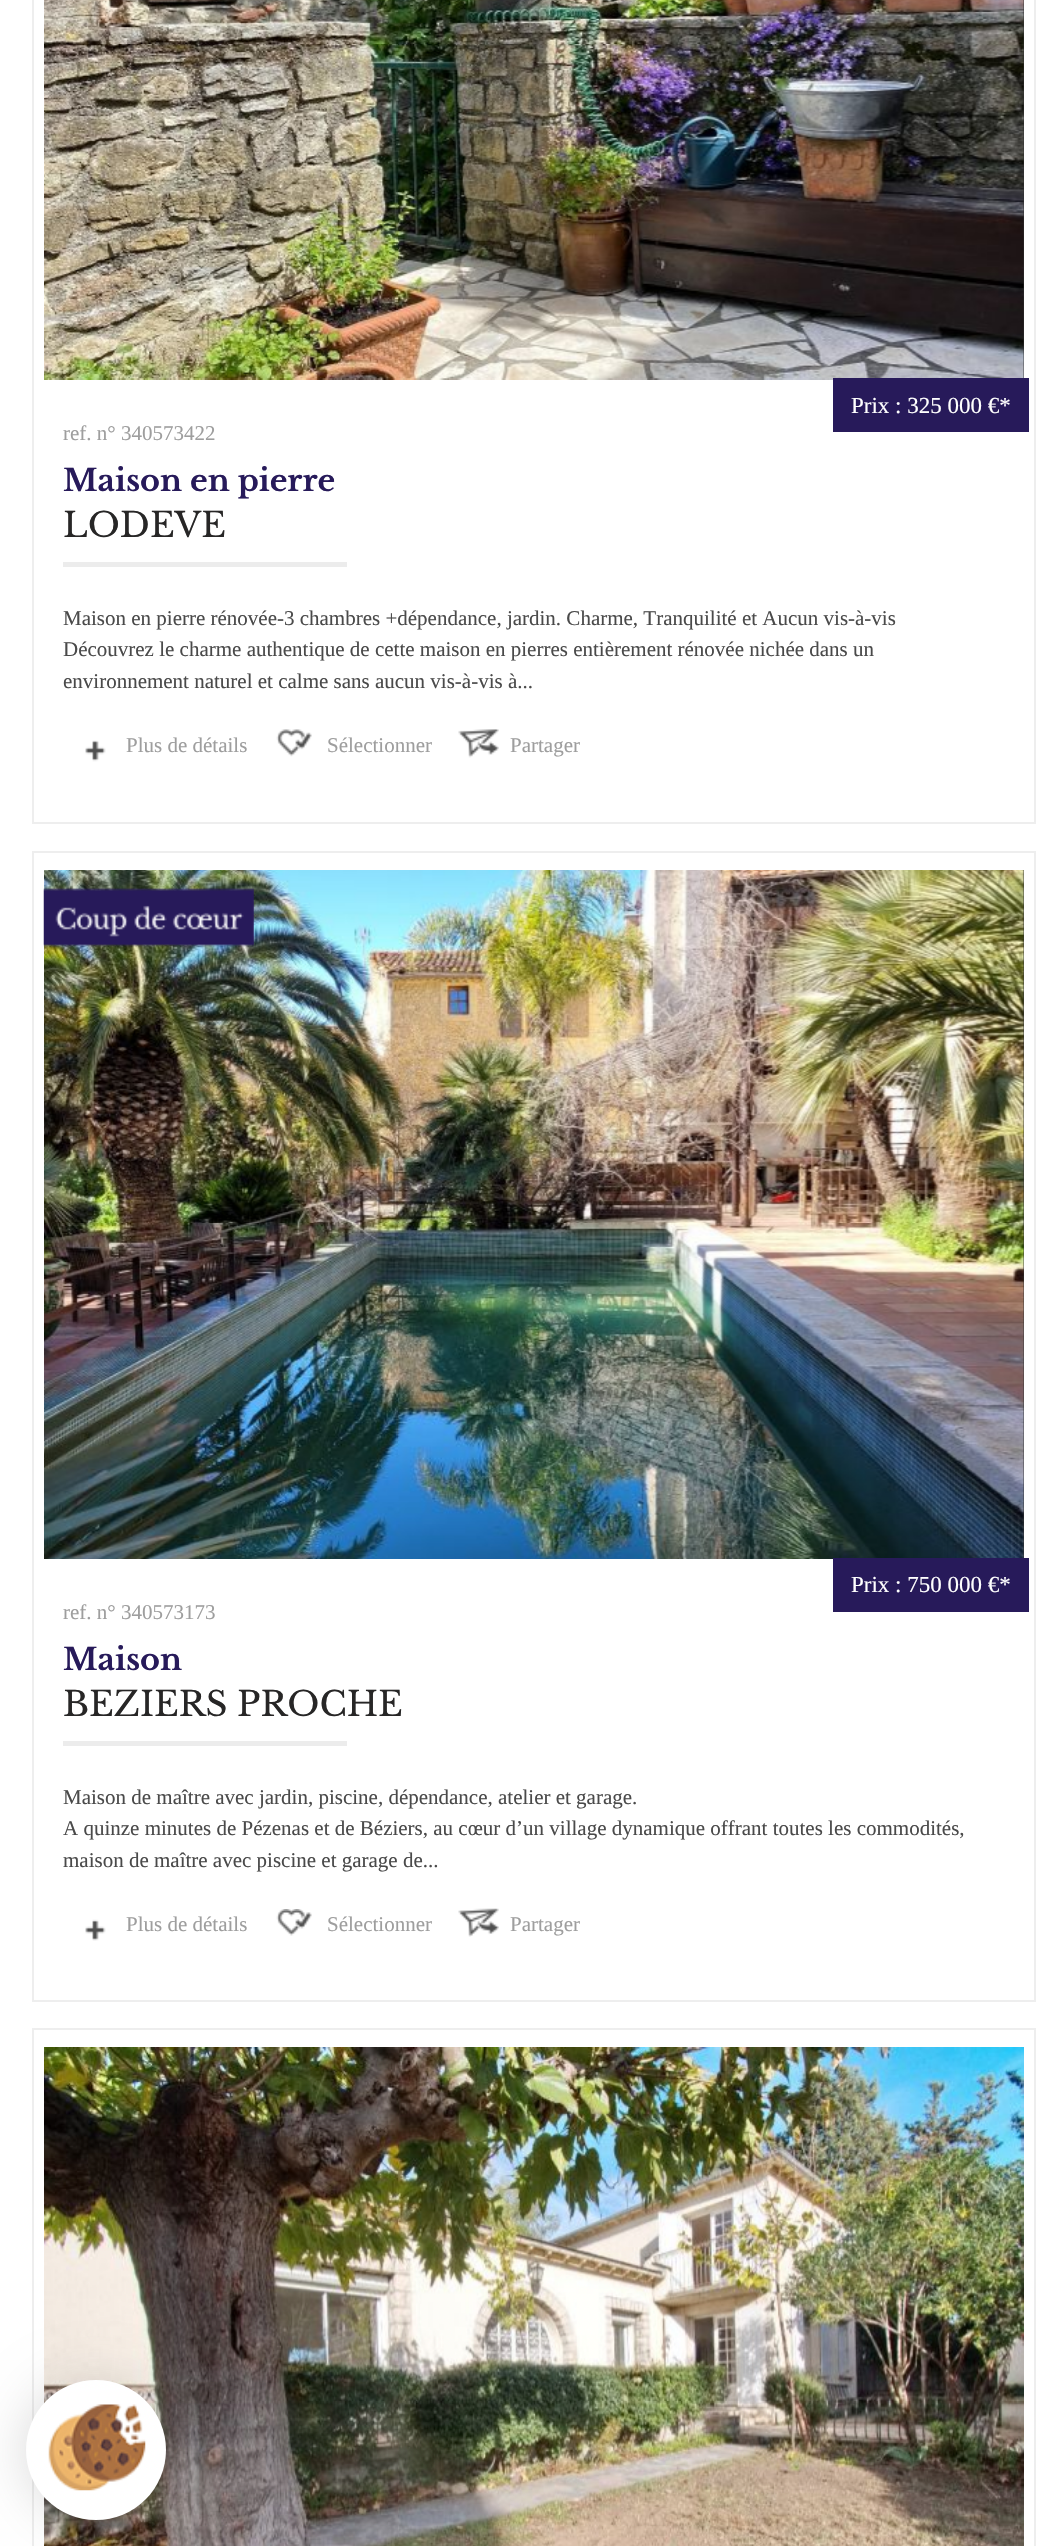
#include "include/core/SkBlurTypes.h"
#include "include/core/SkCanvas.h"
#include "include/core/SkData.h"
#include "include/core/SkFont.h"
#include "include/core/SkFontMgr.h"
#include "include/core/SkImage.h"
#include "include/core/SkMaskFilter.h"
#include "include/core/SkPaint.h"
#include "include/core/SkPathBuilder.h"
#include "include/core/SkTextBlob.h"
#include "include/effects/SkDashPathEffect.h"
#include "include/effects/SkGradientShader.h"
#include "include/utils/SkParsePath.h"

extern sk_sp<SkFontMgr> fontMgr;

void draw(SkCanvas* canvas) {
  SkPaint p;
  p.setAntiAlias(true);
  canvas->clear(SK_ColorWHITE);
  p.setStyle(SkPaint::kStroke_Style);
  p.setStrokeWidth(2);
  p.setColor(SkColorSetRGB(238, 238, 238));
  canvas->drawRect(SkRect::MakeLTRB(33, -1, 1035, 823), p);
  p.setStyle(SkPaint::kFill_Style);
  p.setColor(SkColorSetRGB(47, 47, 47));
  canvas->drawRect(SkRect::MakeLTRB(1023, 0, 1024, 378), p);
  canvas->drawImageRect(SkImages::DeferredFromEncodedData(SkData::MakeFromFileName("images/1.png")), SkRect::MakeLTRB(44, 0, 1024, 380), SkSamplingOptions());
  p.setColor(SkColorSetRGB(39, 26, 90));
  canvas->drawRect(SkRect::MakeLTRB(833, 378, 1029, 432), p);
  p.setColor(SkColorSetRGB(236, 236, 236));
  canvas->drawRect(SkRect::MakeLTRB(63, 562, 347, 567), p);
  canvas->drawImageRect(SkImages::DeferredFromEncodedData(SkData::MakeFromFileName("images/2.png")), SkRect::MakeLTRB(85, 740, 106, 762), SkSamplingOptions());
  canvas->drawImageRect(SkImages::DeferredFromEncodedData(SkData::MakeFromFileName("images/3.png")), SkRect::MakeLTRB(276, 729, 312, 757), SkSamplingOptions());
  canvas->drawImageRect(SkImages::DeferredFromEncodedData(SkData::MakeFromFileName("images/4.png")), SkRect::MakeLTRB(458, 729, 499, 758), SkSamplingOptions());
  p.setStyle(SkPaint::kStroke_Style);
  p.setColor(SkColorSetRGB(238, 238, 238));
  canvas->drawRect(SkRect::MakeLTRB(33, 852, 1035, 2001), p);
  p.setStyle(SkPaint::kFill_Style);
  p.setColor(SkColorSetRGB(47, 47, 47));
  canvas->drawRect(SkRect::MakeLTRB(1023, 870, 1024, 1558), p);
  canvas->drawImageRect(SkImages::DeferredFromEncodedData(SkData::MakeFromFileName("images/5.png")), SkRect::MakeLTRB(44, 870, 1024, 1559), SkSamplingOptions());
  canvas->drawImageRect(SkImages::DeferredFromEncodedData(SkData::MakeFromFileName("images/6.png")), SkRect::MakeLTRB(43, 888, 254, 947), SkSamplingOptions());
  p.setColor(SkColorSetRGB(39, 26, 90));
  canvas->drawRect(SkRect::MakeLTRB(833, 1558, 1029, 1612), p);
  p.setColor(SkColorSetRGB(236, 236, 236));
  canvas->drawRect(SkRect::MakeLTRB(63, 1741, 347, 1746), p);
  canvas->drawImageRect(SkImages::DeferredFromEncodedData(SkData::MakeFromFileName("images/7.png")), SkRect::MakeLTRB(85, 1919, 106, 1941), SkSamplingOptions());
  canvas->drawImageRect(SkImages::DeferredFromEncodedData(SkData::MakeFromFileName("images/8.png")), SkRect::MakeLTRB(276, 1909, 312, 1936), SkSamplingOptions());
  canvas->drawImageRect(SkImages::DeferredFromEncodedData(SkData::MakeFromFileName("images/9.png")), SkRect::MakeLTRB(458, 1908, 499, 1937), SkSamplingOptions());
  p.setStyle(SkPaint::kStroke_Style);
  p.setColor(SkColorSetRGB(238, 238, 238));
  canvas->drawRect(SkRect::MakeLTRB(33, 2029, 1035, 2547), p);
  canvas->drawImageRect(SkImages::DeferredFromEncodedData(SkData::MakeFromFileName("images/10.png")), SkRect::MakeLTRB(44, 2047, 1024, 2546), SkSamplingOptions());
  p.setStyle(SkPaint::kFill_Style);
  p.setColor(SkColorSetARGB(38, 0, 0, 0));
  p.setMaskFilter(SkMaskFilter::MakeBlur(kNormal_SkBlurStyle, 26));
  canvas->drawRoundRect(SkRect::MakeLTRB(26, 2380, 166, 2520), 70, 70, p);
  p.setMaskFilter(nullptr);
  p.setColor(SK_ColorWHITE);
  canvas->drawCircle(96, 2450, 70, p);
  canvas->drawImageRect(SkImages::DeferredFromEncodedData(SkData::MakeFromFileName("images/11.png")), SkRect::MakeLTRB(48, 2404, 146, 2491), SkSamplingOptions());
  SkFont font1(fontMgr->matchFamilyStyle("Liberation Serif", SkFontStyle::Normal()), 23);
  font1.setSubpixel(true);
  canvas->drawString("Prix : 325 000 €*", 851, 413, font1, p);
  SkFont font2(fontMgr->matchFamilyStyle("Liberation Serif", SkFontStyle::Normal()), 21);
  font2.setSubpixel(true);
  p.setColor(SkColorSetRGB(158, 158, 158));
  canvas->drawString("ref. n° 340573422", 63, 440, font2, p);
  SkFont font3(fontMgr->matchFamilyStyle("Libre Baskerville", SkFontStyle::Bold()), 30.25f);
  font3.setSubpixel(true);
  p.setColor(SkColorSetRGB(39, 26, 90));
  canvas->drawString("Maison en pierre", 63, 491, font3, p);
  SkFont font4(fontMgr->matchFamilyStyle("Libre Baskerville", SkFontStyle::Normal()), 34);
  font4.setSubpixel(true);
  p.setColor(SkColorSetRGB(39, 38, 38));
  canvas->drawString("LODEVE", 63, 537, font4, p);
  p.setColor(SkColorSetRGB(74, 74, 74));
  canvas->drawString("Maison en pierre rénovée-3 chambres +dépendance, jardin. Charme, Tranquilité et Aucun vis-à-vis", 63, 625, font2, p);
  canvas->drawString("Découvrez le charme authentique de cette maison en pierres entièrement rénovée nichée dans un", 63, 656, font2, p);
  canvas->drawString("environnement naturel et calme sans aucun vis-à-vis à...", 63, 688, font2, p);
  p.setColor(SkColorSetRGB(158, 158, 158));
  canvas->drawString("Plus de détails", 126, 752, font2, p);
  canvas->drawString("Sélectionner", 327, 752, font2, p);
  canvas->drawString("Partager", 510, 752, font2, p);
  p.setColor(SK_ColorWHITE);
  canvas->drawString("Prix : 750 000 €*", 851, 1592, font1, p);
  p.setColor(SkColorSetRGB(158, 158, 158));
  canvas->drawString("ref. n° 340573173", 63, 1619, font2, p);
  p.setColor(SkColorSetRGB(39, 26, 90));
  canvas->drawString("Maison", 63, 1670, font3, p);
  p.setColor(SkColorSetRGB(39, 38, 38));
  canvas->drawString("BEZIERS PROCHE", 63, 1716, font4, p);
  p.setColor(SkColorSetRGB(74, 74, 74));
  canvas->drawString("Maison de maître avec jardin, piscine, dépendance, atelier et garage.", 63, 1804, font2, p);
  canvas->drawString("A quinze minutes de Pézenas et de Béziers, au cœur d’un village dynamique offrant toutes les commodités,", 63, 1835, font2, p);
  canvas->drawString("maison de maître avec piscine et garage de...", 63, 1867, font2, p);
  p.setColor(SkColorSetRGB(158, 158, 158));
  canvas->drawString("Plus de détails", 126, 1931, font2, p);
  canvas->drawString("Sélectionner", 327, 1931, font2, p);
  canvas->drawString("Partager", 510, 1931, font2, p);
}
